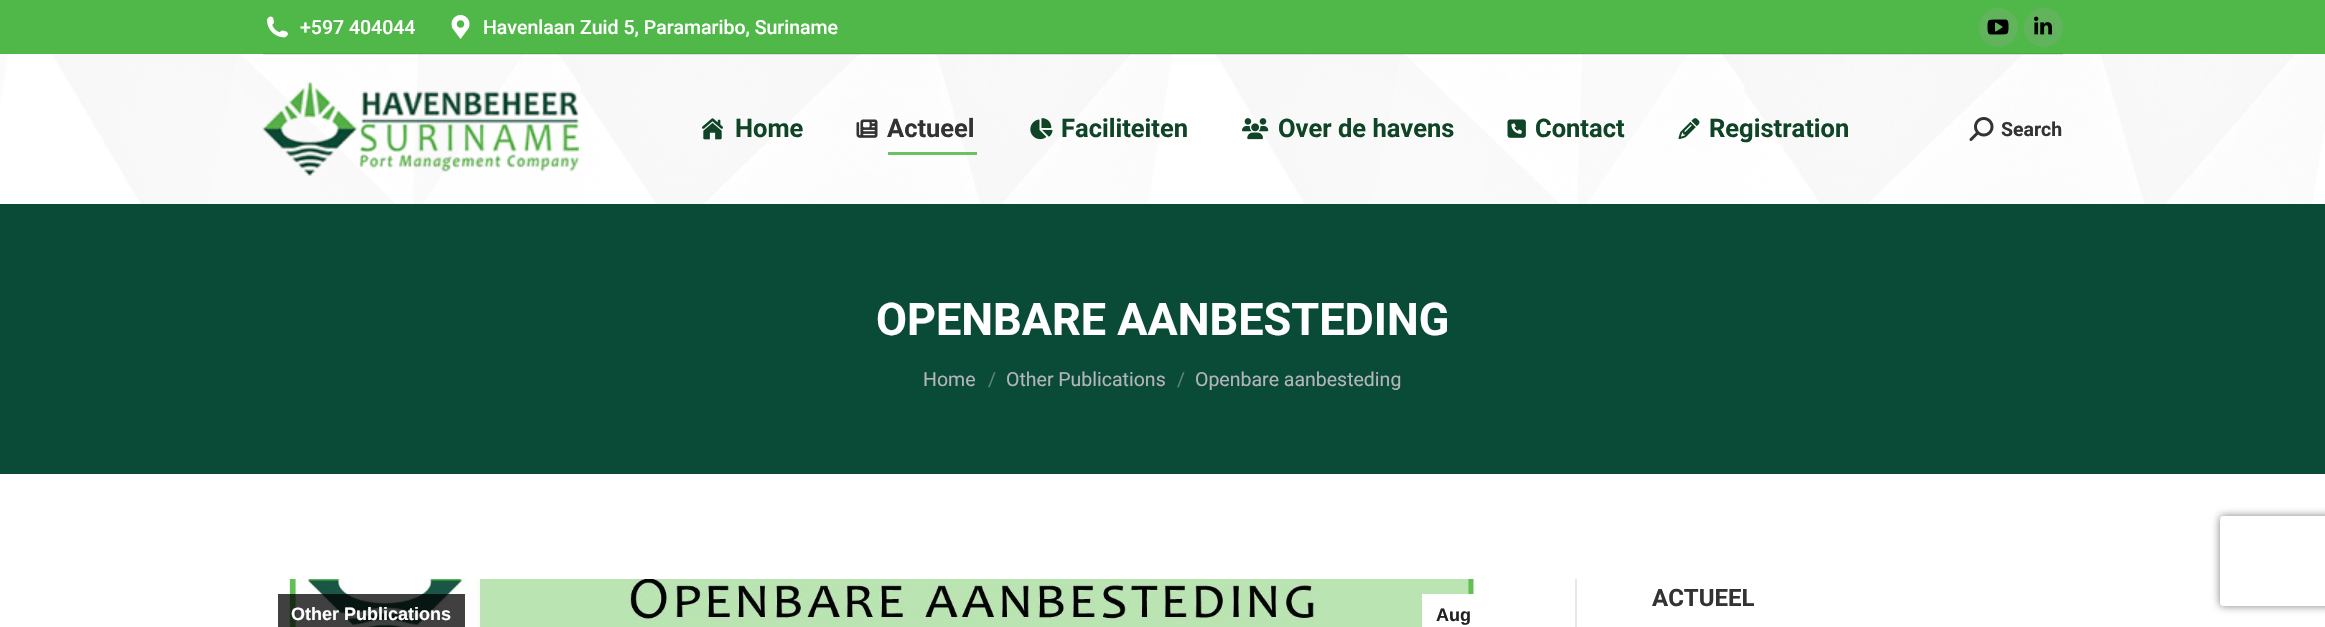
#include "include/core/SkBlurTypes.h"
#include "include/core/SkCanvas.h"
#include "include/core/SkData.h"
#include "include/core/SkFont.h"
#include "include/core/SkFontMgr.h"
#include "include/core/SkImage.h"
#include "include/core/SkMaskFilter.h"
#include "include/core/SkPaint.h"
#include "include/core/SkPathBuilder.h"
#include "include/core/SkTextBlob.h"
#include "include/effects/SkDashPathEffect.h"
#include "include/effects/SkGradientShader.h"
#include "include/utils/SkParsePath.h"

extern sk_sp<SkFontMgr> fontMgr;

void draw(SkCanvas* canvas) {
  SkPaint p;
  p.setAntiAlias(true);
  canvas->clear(SK_ColorWHITE);
  canvas->drawImageRect(SkImages::DeferredFromEncodedData(SkData::MakeFromFileName("images/1.png")), SkRect::MakeLTRB(0, 54, 2325, 204), SkSamplingOptions());
  p.setColor(SkColorSetRGB(80, 184, 72));
  canvas->drawRect(SkRect::MakeLTRB(0, 0, 2325, 54), p);
  canvas->drawImageRect(SkImages::DeferredFromEncodedData(SkData::MakeFromFileName("images/2.png")), SkRect::MakeLTRB(267, 16, 288, 38), SkSamplingOptions());
  canvas->drawImageRect(SkImages::DeferredFromEncodedData(SkData::MakeFromFileName("images/3.png")), SkRect::MakeLTRB(451, 15, 470, 39), SkSamplingOptions());
  p.setColor(SkColorSetRGB(97, 180, 92));
  canvas->drawCircle(1998.5f, 27.5f, 19.5f, p);
  canvas->drawImageRect(SkImages::DeferredFromEncodedData(SkData::MakeFromFileName("images/4.png")), SkRect::MakeLTRB(1987, 19, 2009, 35), SkSamplingOptions());
  canvas->drawCircle(2043.5f, 27.5f, 19.5f, p);
  canvas->drawImageRect(SkImages::DeferredFromEncodedData(SkData::MakeFromFileName("images/5.png")), SkRect::MakeLTRB(2034, 16, 2052, 35), SkSamplingOptions());
  p.setColor(SkColorSetARGB(31, 51, 51, 51));
  canvas->drawRect(SkRect::MakeLTRB(263, 53, 2063, 55), p);
  canvas->drawImageRect(SkImages::DeferredFromEncodedData(SkData::MakeFromFileName("images/6.png")), SkRect::MakeLTRB(262, 82, 579, 176), SkSamplingOptions());
  canvas->drawImageRect(SkImages::DeferredFromEncodedData(SkData::MakeFromFileName("images/7.png")), SkRect::MakeLTRB(702, 118, 723, 140), SkSamplingOptions());
  canvas->drawImageRect(SkImages::DeferredFromEncodedData(SkData::MakeFromFileName("images/8.png")), SkRect::MakeLTRB(856, 119, 878, 138), SkSamplingOptions());
  p.setColor(SkColorSetARGB(217, 80, 184, 72));
  canvas->drawRect(SkRect::MakeLTRB(888, 152, 977, 155), p);
  canvas->drawImageRect(SkImages::DeferredFromEncodedData(SkData::MakeFromFileName("images/9.png")), SkRect::MakeLTRB(1030, 118, 1053, 140), SkSamplingOptions());
  canvas->drawImageRect(SkImages::DeferredFromEncodedData(SkData::MakeFromFileName("images/10.png")), SkRect::MakeLTRB(1242, 118, 1269, 140), SkSamplingOptions());
  canvas->drawImageRect(SkImages::DeferredFromEncodedData(SkData::MakeFromFileName("images/11.png")), SkRect::MakeLTRB(1507, 119, 1526, 138), SkSamplingOptions());
  canvas->drawImageRect(SkImages::DeferredFromEncodedData(SkData::MakeFromFileName("images/12.png")), SkRect::MakeLTRB(1678, 118, 1700, 140), SkSamplingOptions());
  canvas->drawImageRect(SkImages::DeferredFromEncodedData(SkData::MakeFromFileName("images/13.png")), SkRect::MakeLTRB(1969, 117, 1994, 141), SkSamplingOptions());
  p.setColor(SkColorSetRGB(10, 75, 56));
  canvas->drawRect(SkRect::MakeLTRB(0, 204, 2325, 474), p);
  p.setColor(SkColorSetRGB(231, 231, 231));
  canvas->drawRect(SkRect::MakeLTRB(1575, 579, 1577, 627), p);
  canvas->drawImageRect(SkImages::DeferredFromEncodedData(SkData::MakeFromFileName("images/14.png")), SkRect::MakeLTRB(289, 579, 1475, 627), SkSamplingOptions());
  p.setColor(SkColorSetARGB(191, 0, 0, 0));
  canvas->drawRect(SkRect::MakeLTRB(278, 594, 465, 627), p);
  p.setColor(SK_ColorWHITE);
  canvas->drawRect(SkRect::MakeLTRB(1422, 594, 1475, 627), p);
  canvas->save();
  canvas->clipPath(SkPathBuilder(SkPathFillType::kEvenOdd).moveTo(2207, 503).lineTo(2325, 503).lineTo(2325, 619).lineTo(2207, 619).close().moveTo(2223, 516).lineTo(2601, 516).cubicTo(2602.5f, 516, 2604, 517.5f, 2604, 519).lineTo(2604, 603).cubicTo(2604, 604.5f, 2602.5f, 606, 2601, 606).lineTo(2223, 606).cubicTo(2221.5f, 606, 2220, 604.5f, 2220, 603).lineTo(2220, 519).cubicTo(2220, 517.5f, 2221.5f, 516, 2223, 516).close().detach(), true);
  p.setColor(SkColorSetRGB(128, 128, 128));
  p.setMaskFilter(SkMaskFilter::MakeBlur(kNormal_SkBlurStyle, 4));
  canvas->drawRoundRect(SkRect::MakeLTRB(2220, 516, 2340, 606), 3, 3, p);
  p.setMaskFilter(nullptr);
  canvas->restore();
  SkFont font1(fontMgr->matchFamilyStyle("Roboto", SkFontStyle(500, SkFontStyle::kNormal_Width, SkFontStyle::kUpright_Slant)), 19.5f);
  font1.setSubpixel(true);
  p.setColor(SK_ColorWHITE);
  canvas->drawString("+597 404044", 300, 34, font1, p);
  canvas->drawString("Havenlaan Zuid 5, Paramaribo, Suriname", 483, 34, font1, p);
  SkFont font2(fontMgr->matchFamilyStyle("Roboto", SkFontStyle::Bold()), 25.5f);
  font2.setSubpixel(true);
  p.setColor(SkColorSetRGB(15, 68, 38));
  canvas->drawString("Home", 735, 137, font2, p);
  p.setColor(SkColorSetRGB(51, 51, 51));
  canvas->drawString("Actueel", 887, 137, font2, p);
  p.setColor(SkColorSetRGB(15, 68, 38));
  canvas->drawString("Faciliteiten", 1061, 137, font2, p);
  canvas->drawString("Over de havens", 1278, 137, font2, p);
  canvas->drawString("Contact", 1535, 137, font2, p);
  canvas->drawString("Registration", 1709, 137, font2, p);
  SkFont font3(fontMgr->matchFamilyStyle("Roboto", SkFontStyle::Bold()), 19.5f);
  font3.setSubpixel(true);
  p.setColor(SkColorSetRGB(51, 51, 51));
  canvas->drawString("Search", 2001, 136, font3, p);
  SkFont font4(fontMgr->matchFamilyStyle("Roboto", SkFontStyle::Bold()), 45);
  font4.setSubpixel(true);
  p.setColor(SK_ColorWHITE);
  canvas->drawString("OPENBARE AANBESTEDING", 876, 335, font4, p);
  SkFont font5(fontMgr->matchFamilyStyle("Roboto", SkFontStyle::Normal()), 19.5f);
  font5.setSubpixel(true);
  p.setColor(SkColorSetRGB(180, 181, 187));
  canvas->drawString("Home", 923, 386, font5, p);
  p.setColor(SkColorSetRGB(95, 128, 122));
  canvas->drawString("/", 988, 386, font5, p);
  p.setColor(SkColorSetRGB(180, 181, 187));
  canvas->drawString("Other Publications", 1006, 386, font5, p);
  p.setColor(SkColorSetRGB(95, 128, 122));
  canvas->drawString("/", 1177, 386, font5, p);
  p.setColor(SkColorSetRGB(180, 181, 187));
  canvas->drawString("Openbare aanbesteding", 1195, 386, font5, p);
  SkFont font6(fontMgr->matchFamilyStyle("Roboto", SkFontStyle::Bold()), 24);
  font6.setSubpixel(true);
  p.setColor(SkColorSetRGB(51, 51, 51));
  canvas->drawString("ACTUEEL", 1652, 606, font6, p);
  SkFont font7(fontMgr->matchFamilyStyle("Liberation Sans", SkFontStyle::Bold()), 18);
  font7.setSubpixel(true);
  p.setColor(SK_ColorWHITE);
  canvas->drawString("Other Publications", 291, 620, font7, p);
  p.setColor(SkColorSetRGB(34, 34, 34));
  canvas->drawString("Aug", 1436, 621, font7, p);
}
